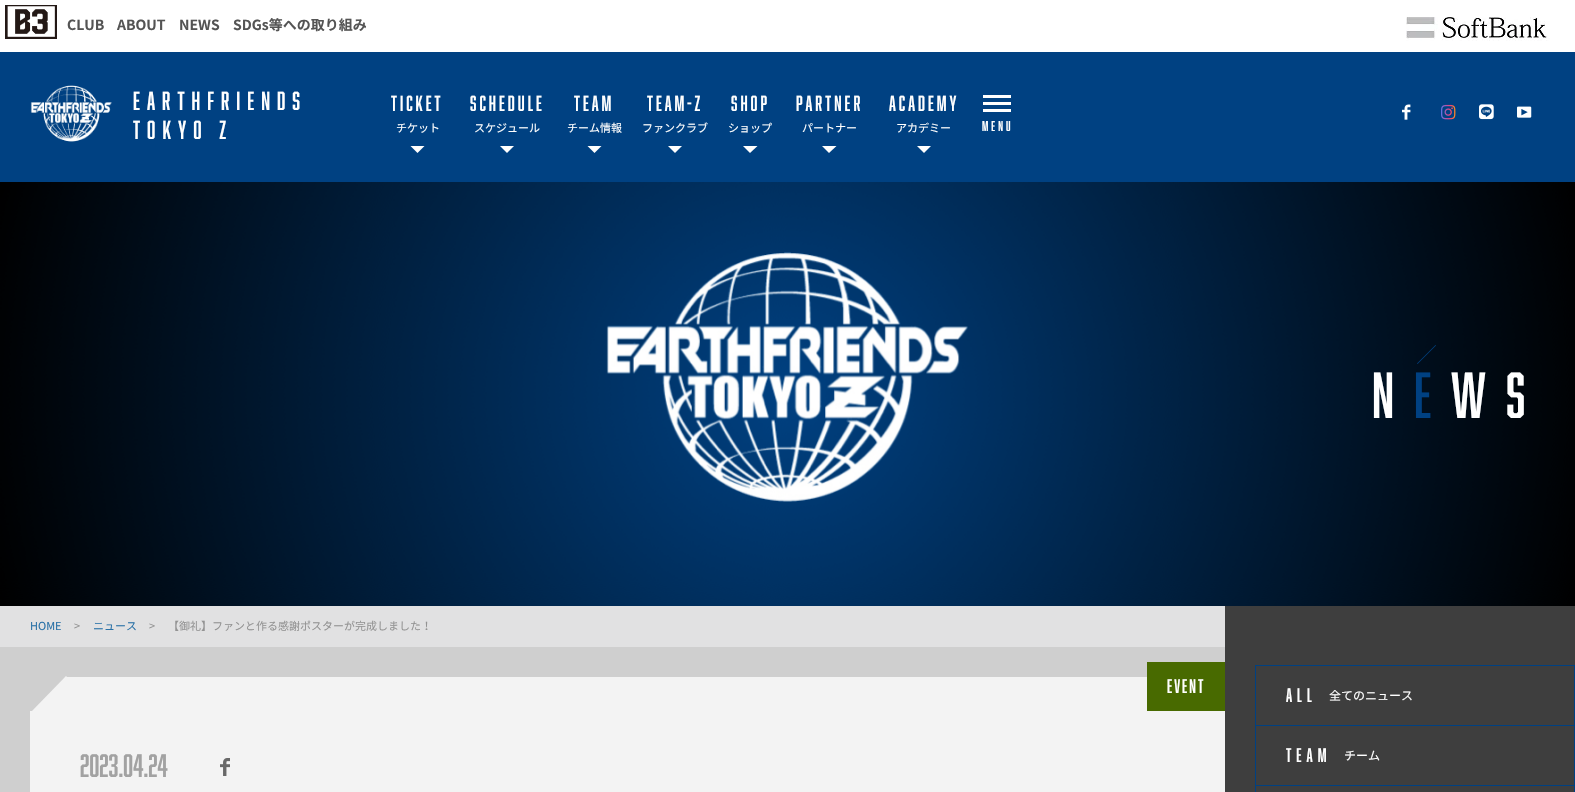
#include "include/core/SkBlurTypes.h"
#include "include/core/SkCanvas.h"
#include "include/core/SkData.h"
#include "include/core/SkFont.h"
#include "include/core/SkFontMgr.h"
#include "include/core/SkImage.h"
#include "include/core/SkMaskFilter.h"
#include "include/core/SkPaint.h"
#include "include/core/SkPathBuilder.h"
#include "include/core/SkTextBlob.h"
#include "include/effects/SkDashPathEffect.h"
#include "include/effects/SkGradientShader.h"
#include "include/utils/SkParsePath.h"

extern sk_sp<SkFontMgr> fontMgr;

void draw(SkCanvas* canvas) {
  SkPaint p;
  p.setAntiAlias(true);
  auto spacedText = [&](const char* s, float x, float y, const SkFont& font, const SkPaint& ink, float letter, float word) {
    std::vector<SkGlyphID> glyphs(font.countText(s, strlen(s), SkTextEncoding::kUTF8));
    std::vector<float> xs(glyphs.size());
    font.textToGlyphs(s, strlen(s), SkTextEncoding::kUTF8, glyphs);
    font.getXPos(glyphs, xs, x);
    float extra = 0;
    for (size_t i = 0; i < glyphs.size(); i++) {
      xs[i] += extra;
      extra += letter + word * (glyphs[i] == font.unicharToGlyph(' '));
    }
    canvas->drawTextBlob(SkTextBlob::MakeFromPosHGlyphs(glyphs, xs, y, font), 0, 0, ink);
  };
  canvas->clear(SK_ColorWHITE);
  canvas->drawImageRect(SkImages::DeferredFromEncodedData(SkData::MakeFromFileName("images/1.png")), SkRect::MakeLTRB(5, 5, 57, 39), SkSamplingOptions());
  canvas->drawImageRect(SkImages::DeferredFromEncodedData(SkData::MakeFromFileName("images/2.png")), SkRect::MakeLTRB(1406, 17, 1550, 41), SkSamplingOptions());
  p.setColor(SkColorSetRGB(0, 65, 130));
  canvas->drawRect(SkRect::MakeLTRB(0, 52, 1575, 182), p);
  canvas->drawImageRect(SkImages::DeferredFromEncodedData(SkData::MakeFromFileName("images/3.png")), SkRect::MakeLTRB(30, 85, 112, 142), SkSamplingOptions());
  p.setColor(SK_ColorWHITE);
  canvas->drawPath(SkPathBuilder().moveTo(417.5f, 139).lineTo(424.5f, 146).lineTo(417.5f, 153).lineTo(410.5f, 146).close().detach(), p);
  p.setColor(SkColorSetRGB(0, 65, 130));
  canvas->drawRect(SkRect::MakeLTRB(410, 139, 425, 146), p);
  p.setColor(SK_ColorWHITE);
  canvas->drawPath(SkPathBuilder().moveTo(507, 139).lineTo(514, 146).lineTo(507, 153).lineTo(500, 146).close().detach(), p);
  p.setColor(SkColorSetRGB(0, 65, 130));
  canvas->drawRect(SkRect::MakeLTRB(500, 139, 514, 146), p);
  p.setColor(SK_ColorWHITE);
  canvas->drawPath(SkPathBuilder().moveTo(594.5f, 139).lineTo(601.5f, 146).lineTo(594.5f, 153).lineTo(587.5f, 146).close().detach(), p);
  p.setColor(SkColorSetRGB(0, 65, 130));
  canvas->drawRect(SkRect::MakeLTRB(587, 139, 602, 146), p);
  p.setColor(SK_ColorWHITE);
  canvas->drawPath(SkPathBuilder().moveTo(675, 139).lineTo(682, 146).lineTo(675, 153).lineTo(668, 146).close().detach(), p);
  p.setColor(SkColorSetRGB(0, 65, 130));
  canvas->drawRect(SkRect::MakeLTRB(668, 139, 682, 146), p);
  p.setColor(SK_ColorWHITE);
  canvas->drawPath(SkPathBuilder().moveTo(750, 139).lineTo(757.5f, 146).lineTo(750, 153).lineTo(743, 146).close().detach(), p);
  p.setColor(SkColorSetRGB(0, 65, 130));
  canvas->drawRect(SkRect::MakeLTRB(743, 139, 758, 146), p);
  p.setColor(SK_ColorWHITE);
  canvas->drawPath(SkPathBuilder().moveTo(829, 139).lineTo(836.5f, 146).lineTo(829, 153).lineTo(822, 146).close().detach(), p);
  p.setColor(SkColorSetRGB(0, 65, 130));
  canvas->drawRect(SkRect::MakeLTRB(822, 139, 837, 146), p);
  p.setColor(SK_ColorWHITE);
  canvas->drawPath(SkPathBuilder().moveTo(924, 139).lineTo(931, 146).lineTo(924, 153).lineTo(917, 146).close().detach(), p);
  p.setColor(SkColorSetRGB(0, 65, 130));
  canvas->drawRect(SkRect::MakeLTRB(917, 139, 931, 146), p);
  p.setColor(SK_ColorWHITE);
  canvas->drawRect(SkRect::MakeLTRB(983, 95, 1011, 98), p);
  canvas->drawRect(SkRect::MakeLTRB(983, 102, 1011, 105), p);
  canvas->drawRect(SkRect::MakeLTRB(983, 109, 1011, 112), p);
  canvas->drawImageRect(SkImages::DeferredFromEncodedData(SkData::MakeFromFileName("images/4.png")), SkRect::MakeLTRB(1402, 104, 1411, 120), SkSamplingOptions());
  canvas->drawImageRect(SkImages::DeferredFromEncodedData(SkData::MakeFromFileName("images/5.png")), SkRect::MakeLTRB(1441, 104, 1456, 120), SkSamplingOptions());
  canvas->drawImageRect(SkImages::DeferredFromEncodedData(SkData::MakeFromFileName("images/6.png")), SkRect::MakeLTRB(1479, 104, 1494, 120), SkSamplingOptions());
  canvas->drawImageRect(SkImages::DeferredFromEncodedData(SkData::MakeFromFileName("images/7.png")), SkRect::MakeLTRB(1517, 106, 1532, 118), SkSamplingOptions());
  canvas->drawImageRect(SkImages::DeferredFromEncodedData(SkData::MakeFromFileName("images/8.png")), SkRect::MakeLTRB(0, 182, 1575, 606), SkSamplingOptions());
  p.setColor(SkColorSetRGB(0, 65, 130));
  canvas->drawPath(SkPathBuilder().moveTo(1417, 363.5f).lineTo(1435.5f, 345).lineTo(1436, 345.5f).lineTo(1417.5f, 364).close().detach(), p);
  p.setColor(SkColorSetRGB(62, 62, 62));
  canvas->drawRect(SkRect::MakeLTRB(1225, 606, 1575, 792), p);
  p.setColor(SkColorSetRGB(207, 207, 207));
  canvas->drawRect(SkRect::MakeLTRB(0, 647, 1225, 792), p);
  p.setColor(SkColorSetRGB(225, 225, 226));
  canvas->drawRect(SkRect::MakeLTRB(0, 606, 1225, 647), p);
  p.setColor(SkColorSetRGB(243, 243, 243));
  canvas->drawRect(SkRect::MakeLTRB(67, 677, 1147, 711), p);
  canvas->drawPath(SkPathBuilder().moveTo(66, 676).lineTo(101, 712).lineTo(66, 747).lineTo(31, 712).close().detach(), p);
  p.setColor(SkColorSetRGB(72, 106, 0));
  canvas->drawRect(SkRect::MakeLTRB(1147, 662, 1225, 711), p);
  p.setColor(SkColorSetRGB(243, 243, 243));
  canvas->drawRect(SkRect::MakeLTRB(30, 711, 1225, 792), p);
  canvas->drawImageRect(SkImages::DeferredFromEncodedData(SkData::MakeFromFileName("images/9.png")), SkRect::MakeLTRB(220, 758, 230, 776), SkSamplingOptions());
  p.setStyle(SkPaint::kStroke_Style);
  p.setStrokeWidth(1);
  p.setColor(SkColorSetRGB(0, 65, 130));
  canvas->drawRect(SkRect::MakeLTRB(1255.5f, 665.5f, 1574.5f, 725.5f), p);
  canvas->drawRect(SkRect::MakeLTRB(1255.5f, 725.5f, 1574.5f, 785.5f), p);
  canvas->drawRect(SkRect::MakeLTRB(1255.5f, 785.5f, 1574.5f, 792.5f), p);
  SkFont font1(fontMgr->matchFamilyStyle("Noto Sans CJK JP", SkFontStyle::Bold()), 14);
  font1.setSubpixel(true);
  p.setStyle(SkPaint::kFill_Style);
  p.setColor(SkColorSetRGB(84, 84, 84));
  canvas->drawString("CLUB", 67, 30, font1, p);
  canvas->drawString("ABOUT", 117, 30, font1, p);
  canvas->drawString("NEWS", 179, 30, font1, p);
  canvas->drawString("SDGs等への取り組み", 233, 30, font1, p);
  SkFont font2(fontMgr->matchFamilyStyle("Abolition", SkFontStyle::Normal()), 24);
  font2.setSubpixel(true);
  p.setColor(SK_ColorWHITE);
  spacedText("EARTHFRIENDS", 133, 110, font2, p, 7, 0);
  spacedText("TOKYO Z", 133, 139, font2, p, 7, 0);
  SkFont font3(fontMgr->matchFamilyStyle("Abolition", SkFontStyle::Normal()), 20);
  font3.setSubpixel(true);
  spacedText("TICKET", 391, 111, font3, p, 3, 0);
  SkFont font4(fontMgr->matchFamilyStyle("Noto Sans CJK JP", SkFontStyle::Normal()), 11);
  font4.setSubpixel(true);
  canvas->drawString("チケット", 396, 132, font4, p);
  spacedText("SCHEDULE", 470, 111, font3, p, 3, 0);
  canvas->drawString("スケジュール", 474, 132, font4, p);
  spacedText("TEAM", 574, 111, font3, p, 3, 0);
  canvas->drawString("チーム情報", 567, 132, font4, p);
  spacedText("TEAM-Z", 647, 111, font3, p, 3, 0);
  canvas->drawString("ファンクラブ", 642, 132, font4, p);
  spacedText("SHOP", 731, 111, font3, p, 3, 0);
  canvas->drawString("ショップ", 728, 132, font4, p);
  spacedText("PARTNER", 796, 111, font3, p, 3, 0);
  canvas->drawString("パートナー", 802, 132, font4, p);
  spacedText("ACADEMY", 889, 111, font3, p, 3, 0);
  canvas->drawString("アカデミー", 896, 132, font4, p);
  SkFont font5(fontMgr->matchFamilyStyle("Abolition", SkFontStyle::Normal()), 13);
  font5.setSubpixel(true);
  spacedText("MENU", 982, 131, font5, p, 3, 0);
  SkFont font6(fontMgr->matchFamilyStyle("Abolition", SkFontStyle::Normal()), 60);
  font6.setSubpixel(true);
  canvas->drawString("N", 1372, 418, font6, p);
  p.setColor(SkColorSetRGB(0, 65, 130));
  canvas->drawString("E", 1414, 418, font6, p);
  p.setColor(SK_ColorWHITE);
  canvas->drawString("W", 1451, 418, font6, p);
  canvas->drawString("S", 1506, 418, font6, p);
  p.setColor(SkColorSetRGB(41, 113, 167));
  canvas->drawString("HOME", 30, 630, font4, p);
  p.setColor(SkColorSetRGB(147, 147, 147));
  canvas->drawString(">", 74, 630, font4, p);
  p.setColor(SkColorSetRGB(41, 113, 167));
  canvas->drawString("ニュース", 93, 630, font4, p);
  p.setColor(SkColorSetRGB(147, 147, 147));
  canvas->drawString(">", 149, 630, font4, p);
  canvas->drawString("【御礼】ファンと作る感謝ポスターが完成しました！", 168, 630, font4, p);
  SkFont font7(fontMgr->matchFamilyStyle("Abolition", SkFontStyle::Normal()), 18);
  font7.setSubpixel(true);
  p.setColor(SK_ColorWHITE);
  spacedText("EVENT", 1167, 693, font7, p, 2, 0);
  SkFont font8(fontMgr->matchFamilyStyle("Abolition", SkFontStyle::Normal()), 30);
  font8.setSubpixel(true);
  p.setColor(SkColorSetRGB(162, 162, 162));
  canvas->drawString("2023.04.24", 80, 777, font8, p);
  p.setColor(SK_ColorWHITE);
  spacedText("ALL", 1286, 702, font7, p, 5, 0);
  SkFont font9(fontMgr->matchFamilyStyle("Noto Sans CJK JP", SkFontStyle::Normal()), 12);
  font9.setSubpixel(true);
  canvas->drawString("全てのニュース", 1329, 700, font9, p);
  spacedText("TEAM", 1286, 762, font7, p, 5, 0);
  canvas->drawString("チーム", 1344, 760, font9, p);
}
